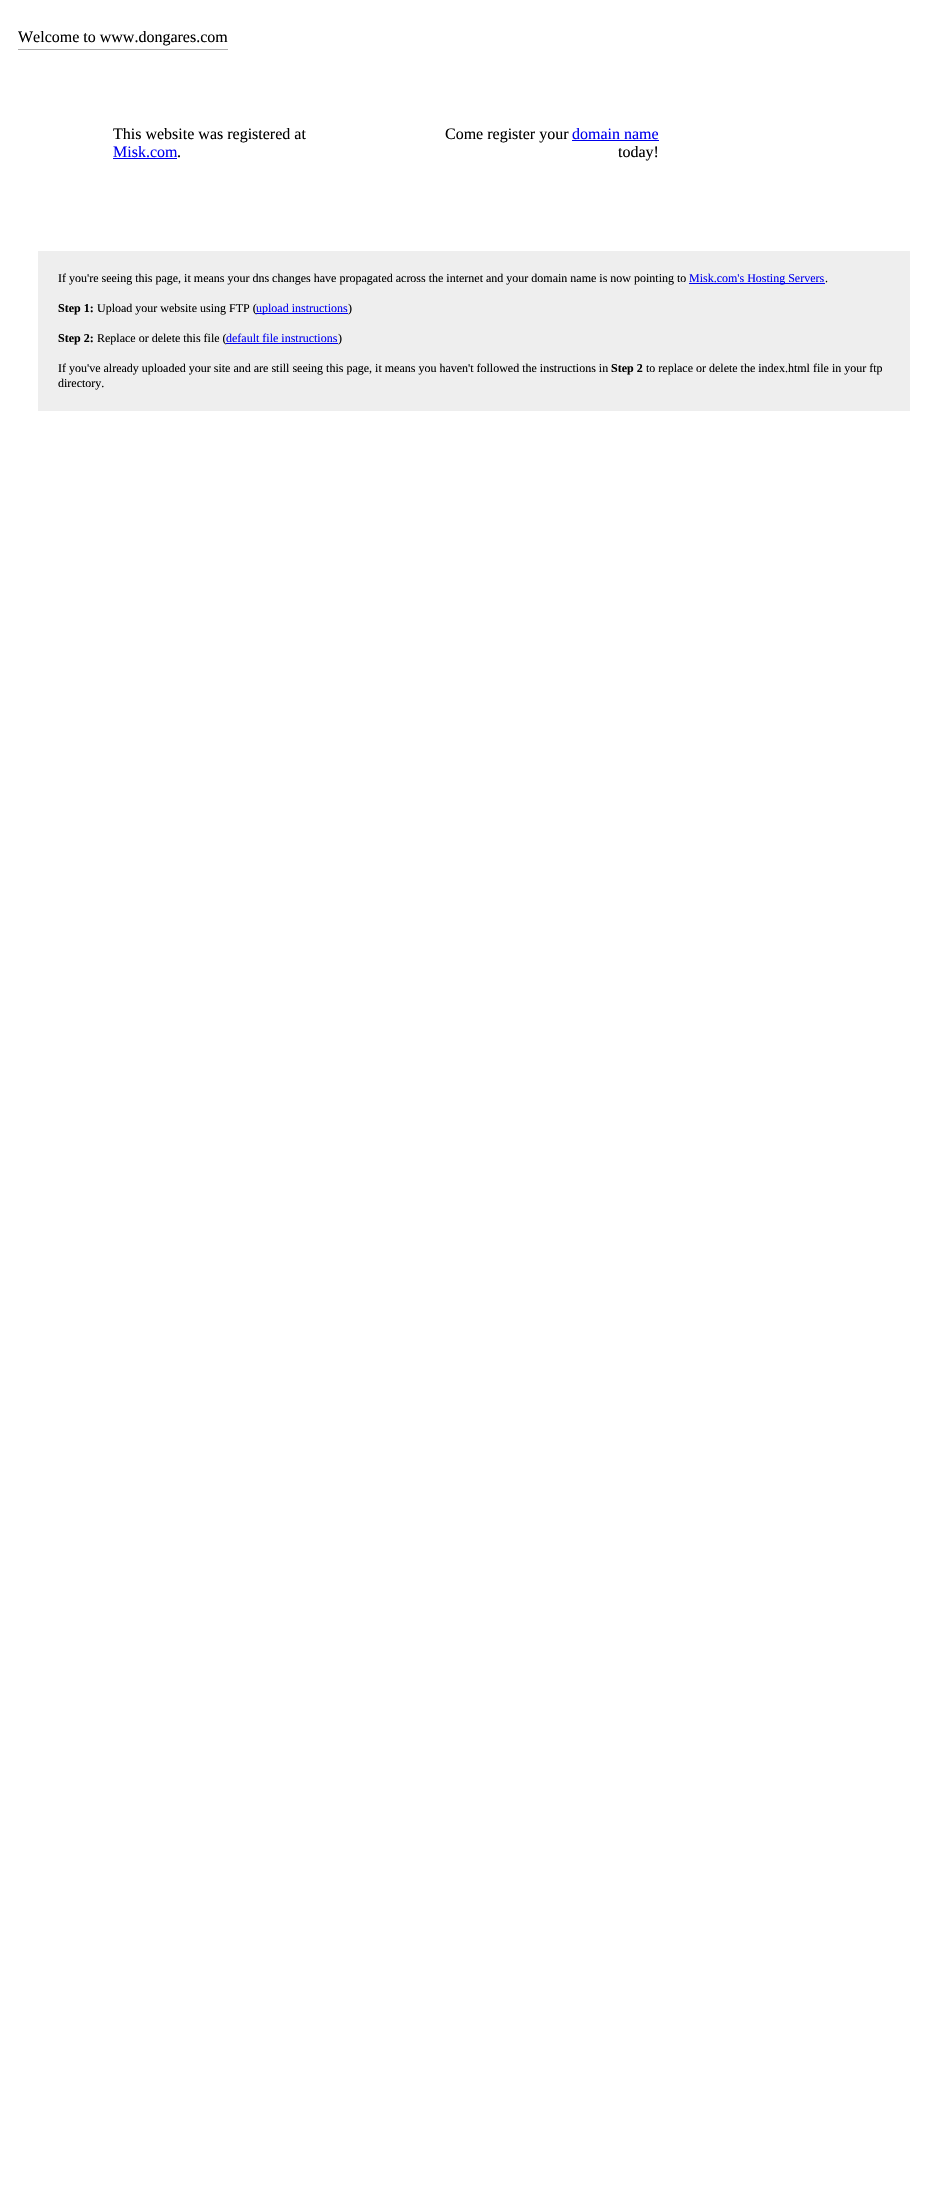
#include "include/core/SkBlurTypes.h"
#include "include/core/SkCanvas.h"
#include "include/core/SkData.h"
#include "include/core/SkFont.h"
#include "include/core/SkFontMgr.h"
#include "include/core/SkImage.h"
#include "include/core/SkMaskFilter.h"
#include "include/core/SkPaint.h"
#include "include/core/SkPathBuilder.h"
#include "include/core/SkTextBlob.h"
#include "include/effects/SkDashPathEffect.h"
#include "include/effects/SkGradientShader.h"
#include "include/utils/SkParsePath.h"

extern sk_sp<SkFontMgr> fontMgr;

void draw(SkCanvas* canvas) {
  SkPaint p;
  p.setAntiAlias(true);
  canvas->clear(SK_ColorWHITE);
  p.setColor(SkColorSetRGB(173, 173, 173));
  canvas->drawRect(SkRect::MakeLTRB(18, 49, 228, 50), p);
  p.setColor(SkColorSetRGB(0, 0, 238));
  canvas->drawRect(SkRect::MakeLTRB(113, 158, 177, 159), p);
  canvas->drawRect(SkRect::MakeLTRB(572, 140, 659, 141), p);
  p.setColor(SkColorSetRGB(238, 238, 238));
  canvas->drawRect(SkRect::MakeLTRB(38, 251, 910, 411), p);
  p.setColor(SkColorSetRGB(0, 0, 238));
  canvas->drawRect(SkRect::MakeLTRB(689, 283, 825, 284), p);
  canvas->drawRect(SkRect::MakeLTRB(256, 313, 348, 314), p);
  canvas->drawRect(SkRect::MakeLTRB(226, 343, 338, 344), p);
  SkFont font1(fontMgr->matchFamilyStyle("Liberation Serif", SkFontStyle::Normal()), 16);
  font1.setSubpixel(true);
  p.setColor(SK_ColorBLACK);
  canvas->drawString("Welcome to www.dongares.com", 18, 42, font1, p);
  canvas->drawString("This website was registered at", 113, 139, font1, p);
  p.setColor(SkColorSetRGB(0, 0, 238));
  canvas->drawString("Misk.com", 113, 157, font1, p);
  p.setColor(SK_ColorBLACK);
  canvas->drawString(".", 177, 157, font1, p);
  canvas->drawString("Come register your", 445, 139, font1, p);
  p.setColor(SkColorSetRGB(0, 0, 238));
  canvas->drawString("domain name", 572, 139, font1, p);
  p.setColor(SK_ColorBLACK);
  canvas->drawString("today!", 618, 157, font1, p);
  SkFont font2(fontMgr->matchFamilyStyle("Liberation Serif", SkFontStyle::Normal()), 12);
  font2.setSubpixel(true);
  canvas->drawString("If you're seeing this page, it means your dns changes have propagated across the internet and your domain name is now pointing to", 58, 282, font2, p);
  p.setColor(SkColorSetRGB(0, 0, 238));
  canvas->drawString("Misk.com's Hosting Servers", 689, 282, font2, p);
  p.setColor(SK_ColorBLACK);
  canvas->drawString(".", 825, 282, font2, p);
  SkFont font3(fontMgr->matchFamilyStyle("Liberation Serif", SkFontStyle::Bold()), 12);
  font3.setSubpixel(true);
  canvas->drawString("Step 1:", 58, 312, font3, p);
  canvas->drawString("Upload your website using FTP (", 97, 312, font2, p);
  p.setColor(SkColorSetRGB(0, 0, 238));
  canvas->drawString("upload instructions", 256, 312, font2, p);
  p.setColor(SK_ColorBLACK);
  canvas->drawString(")", 348, 312, font2, p);
  canvas->drawString("Step 2:", 58, 342, font3, p);
  canvas->drawString("Replace or delete this file (", 97, 342, font2, p);
  p.setColor(SkColorSetRGB(0, 0, 238));
  canvas->drawString("default file instructions", 226, 342, font2, p);
  p.setColor(SK_ColorBLACK);
  canvas->drawString(")", 338, 342, font2, p);
  canvas->drawString("If you've already uploaded your site and are still seeing this page, it means you haven't followed the instructions in", 58, 372, font2, p);
  canvas->drawString("Step 2", 611, 372, font3, p);
  canvas->drawString("to replace or delete the index.html file in your ftp", 646, 372, font2, p);
  canvas->drawString("directory.", 58, 387, font2, p);
}
